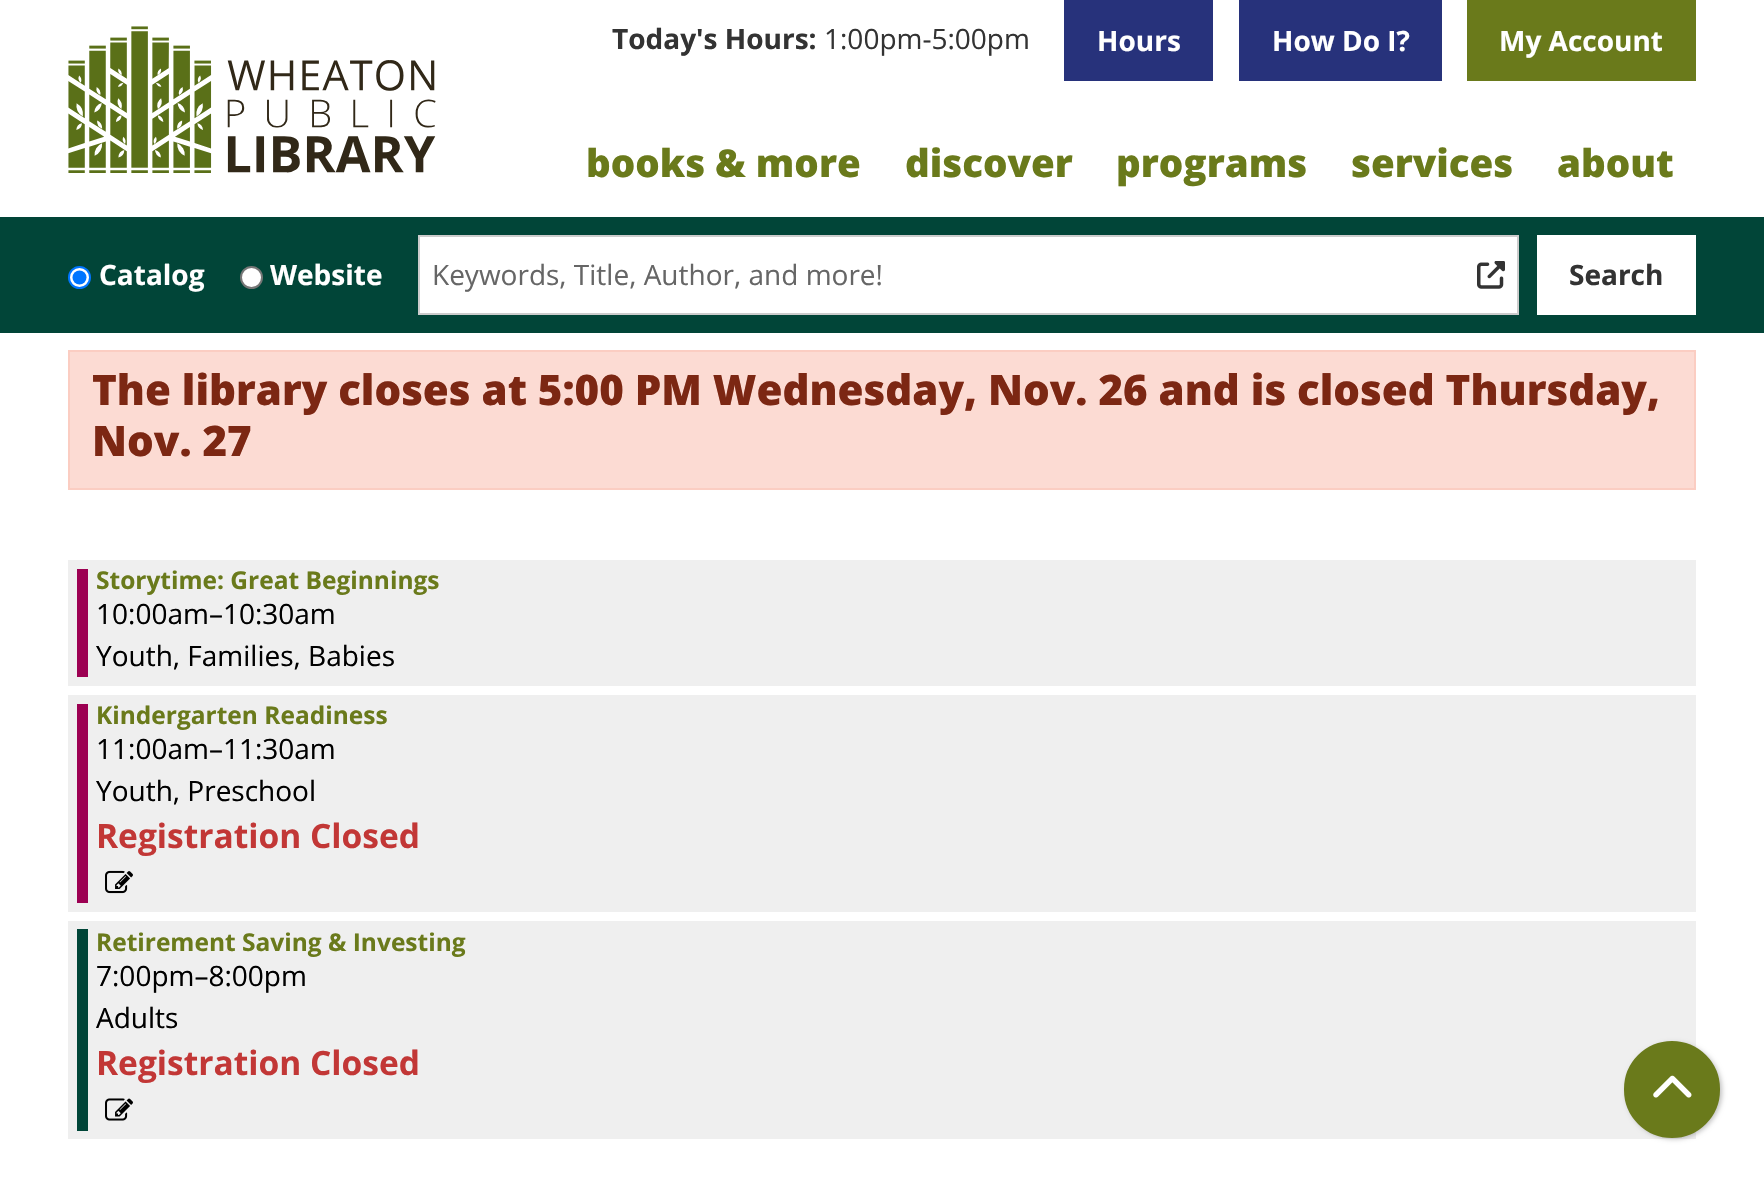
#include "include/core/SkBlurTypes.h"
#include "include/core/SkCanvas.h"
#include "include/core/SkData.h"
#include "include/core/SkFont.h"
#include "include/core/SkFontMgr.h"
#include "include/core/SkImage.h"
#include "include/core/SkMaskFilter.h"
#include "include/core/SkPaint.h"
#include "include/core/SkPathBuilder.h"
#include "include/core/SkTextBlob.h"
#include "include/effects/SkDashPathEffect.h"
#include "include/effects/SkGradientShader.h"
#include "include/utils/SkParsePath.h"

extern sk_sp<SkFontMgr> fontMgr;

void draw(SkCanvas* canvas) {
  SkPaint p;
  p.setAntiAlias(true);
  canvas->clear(SK_ColorWHITE);
  canvas->drawImageRect(SkImages::DeferredFromEncodedData(SkData::MakeFromFileName("images/1.png")), SkRect::MakeLTRB(68, 26, 436, 173), SkSamplingOptions());
  p.setColor(SkColorSetRGB(39, 50, 123));
  canvas->drawRect(SkRect::MakeLTRB(1064, 0, 1213, 81), p);
  canvas->drawRect(SkRect::MakeLTRB(1239, 0, 1442, 81), p);
  p.setColor(SkColorSetRGB(106, 122, 27));
  canvas->drawRect(SkRect::MakeLTRB(1467, 0, 1696, 81), p);
  p.setColor(SkColorSetRGB(1, 69, 56));
  canvas->drawRect(SkRect::MakeLTRB(0, 217, 1764, 333), p);
  p.setColor(SK_ColorWHITE);
  canvas->drawCircle(79.5f, 277.5f, 10.5f, p);
  p.setStyle(SkPaint::kStroke_Style);
  p.setStrokeWidth(2);
  p.setColor(SkColorSetRGB(0, 117, 255));
  canvas->drawCircle(79.5f, 277.5f, 10.5f, p);
  p.setStyle(SkPaint::kFill_Style);
  canvas->drawCircle(79.5f, 277.5f, 7, p);
  p.setColor(SK_ColorWHITE);
  canvas->drawCircle(251.5f, 277.5f, 10.5f, p);
  p.setStyle(SkPaint::kStroke_Style);
  p.setColor(SkColorSetRGB(118, 118, 118));
  canvas->drawCircle(251.5f, 277.5f, 10.5f, p);
  p.setStyle(SkPaint::kFill_Style);
  p.setColor(SK_ColorWHITE);
  canvas->drawRect(SkRect::MakeLTRB(419, 236, 1518, 314), p);
  p.setStyle(SkPaint::kStroke_Style);
  p.setColor(SkColorSetRGB(204, 204, 204));
  canvas->drawRect(SkRect::MakeLTRB(419, 236, 1518, 314), p);
  canvas->drawImageRect(SkImages::DeferredFromEncodedData(SkData::MakeFromFileName("images/2.png")), SkRect::MakeLTRB(1477, 261, 1505, 289), SkSamplingOptions());
  p.setStyle(SkPaint::kFill_Style);
  p.setColor(SK_ColorWHITE);
  canvas->drawRect(SkRect::MakeLTRB(1537, 235, 1696, 315), p);
  p.setColor(SkColorSetRGB(252, 219, 211));
  canvas->drawRect(SkRect::MakeLTRB(69, 351, 1695, 489), p);
  p.setStyle(SkPaint::kStroke_Style);
  p.setColor(SkColorSetRGB(251, 205, 194));
  canvas->drawRect(SkRect::MakeLTRB(69, 351, 1695, 489), p);
  p.setStyle(SkPaint::kFill_Style);
  p.setColor(SkColorSetRGB(239, 239, 239));
  canvas->drawRect(SkRect::MakeLTRB(68, 560, 1696, 686), p);
  p.setColor(SkColorSetRGB(156, 0, 82));
  canvas->drawRect(SkRect::MakeLTRB(77, 569, 88, 677), p);
  p.setColor(SkColorSetRGB(239, 239, 239));
  canvas->drawRect(SkRect::MakeLTRB(68, 695, 1696, 912), p);
  p.setColor(SkColorSetRGB(156, 0, 82));
  canvas->drawRect(SkRect::MakeLTRB(77, 704, 88, 903), p);
  canvas->drawImageRect(SkImages::DeferredFromEncodedData(SkData::MakeFromFileName("images/3.png")), SkRect::MakeLTRB(105, 870, 133, 894), SkSamplingOptions());
  p.setColor(SkColorSetRGB(239, 239, 239));
  canvas->drawRect(SkRect::MakeLTRB(68, 921, 1696, 1139), p);
  p.setColor(SkColorSetRGB(0, 69, 56));
  canvas->drawRect(SkRect::MakeLTRB(77, 929, 88, 1131), p);
  canvas->drawImageRect(SkImages::DeferredFromEncodedData(SkData::MakeFromFileName("images/4.png")), SkRect::MakeLTRB(105, 1098, 133, 1121), SkSamplingOptions());
  p.setColor(SkColorSetARGB(64, 0, 0, 0));
  p.setMaskFilter(SkMaskFilter::MakeBlur(kNormal_SkBlurStyle, 2.5f));
  canvas->drawRoundRect(SkRect::MakeLTRB(1626, 1043, 1722, 1139), 48, 48, p);
  p.setMaskFilter(nullptr);
  p.setColor(SkColorSetRGB(106, 122, 27));
  canvas->drawRoundRect(SkRect::MakeLTRB(1625, 1042, 1719, 1137), 47, 47, p);
  p.setStyle(SkPaint::kStroke_Style);
  canvas->drawRoundRect(SkRect::MakeLTRB(1625, 1042, 1719, 1137), 47, 47, p);
  canvas->drawImageRect(SkImages::DeferredFromEncodedData(SkData::MakeFromFileName("images/5.png")), SkRect::MakeLTRB(1653, 1075, 1692, 1098), SkSamplingOptions());
  SkFont font1(fontMgr->matchFamilyStyle("Open Sans", SkFontStyle::Bold()), 28);
  font1.setSubpixel(true);
  p.setStyle(SkPaint::kFill_Style);
  p.setColor(SkColorSetRGB(51, 51, 51));
  canvas->drawString("Today's Hours:", 612, 49, font1, p);
  SkFont font2(fontMgr->matchFamilyStyle("Open Sans", SkFontStyle::Normal()), 28);
  font2.setSubpixel(true);
  canvas->drawString("1:00pm-5:00pm", 824, 49, font2, p);
  p.setColor(SK_ColorWHITE);
  canvas->drawString("Hours", 1097, 51, font1, p);
  canvas->drawString("How Do I?", 1272, 51, font1, p);
  canvas->drawString("My Account", 1499, 51, font1, p);
  SkFont font3(fontMgr->matchFamilyStyle("Open Sans", SkFontStyle(800, SkFontStyle::kNormal_Width, SkFontStyle::kUpright_Slant)), 38.5f);
  font3.setSubpixel(true);
  p.setColor(SkColorSetRGB(106, 122, 27));
  canvas->drawString("books & more", 586, 177, font3, p);
  canvas->drawString("discover", 905, 177, font3, p);
  canvas->drawString("programs", 1116, 177, font3, p);
  canvas->drawString("services", 1351, 177, font3, p);
  canvas->drawString("about", 1557, 177, font3, p);
  p.setColor(SK_ColorWHITE);
  canvas->drawString("Catalog", 99, 285, font1, p);
  canvas->drawString("Website", 270, 285, font1, p);
  p.setColor(SkColorSetRGB(102, 102, 102));
  canvas->drawString("Keywords, Title, Author, and more!", 432, 285, font2, p);
  p.setColor(SkColorSetRGB(51, 51, 51));
  canvas->drawString("Search", 1569, 285, font1, p);
  SkFont font4(fontMgr->matchFamilyStyle("Open Sans", SkFontStyle(800, SkFontStyle::kNormal_Width, SkFontStyle::kUpright_Slant)), 42);
  font4.setSubpixel(true);
  p.setColor(SkColorSetRGB(124, 39, 19));
  canvas->drawString("The library closes at 5:00 PM Wednesday, Nov. 26 and is closed Thursday,", 92, 405, font4, p);
  canvas->drawString("Nov. 27", 92, 456, font4, p);
  SkFont font5(fontMgr->matchFamilyStyle("Open Sans", SkFontStyle::Bold()), 24.5f);
  font5.setSubpixel(true);
  p.setColor(SkColorSetRGB(106, 122, 27));
  canvas->drawString("Storytime: Great Beginnings", 96, 589, font5, p);
  p.setColor(SK_ColorBLACK);
  canvas->drawString("10:00am–10:30am", 96, 624, font2, p);
  canvas->drawString("Youth, Families, Babies", 96, 666, font2, p);
  p.setColor(SkColorSetRGB(106, 122, 27));
  canvas->drawString("Kindergarten Readiness", 96, 724, font5, p);
  p.setColor(SK_ColorBLACK);
  canvas->drawString("11:00am–11:30am", 96, 759, font2, p);
  canvas->drawString("Youth, Preschool", 96, 801, font2, p);
  SkFont font6(fontMgr->matchFamilyStyle("Open Sans", SkFontStyle::Bold()), 33.5f);
  font6.setSubpixel(true);
  p.setColor(SkColorSetRGB(194, 55, 54));
  canvas->drawString("Registration Closed", 96, 848, font6, p);
  p.setColor(SkColorSetRGB(106, 122, 27));
  canvas->drawString("Retirement Saving & Investing", 96, 951, font5, p);
  p.setColor(SK_ColorBLACK);
  canvas->drawString("7:00pm–8:00pm", 96, 986, font2, p);
  canvas->drawString("Adults", 96, 1028, font2, p);
  p.setColor(SkColorSetRGB(194, 55, 54));
  canvas->drawString("Registration Closed", 96, 1075, font6, p);
}
